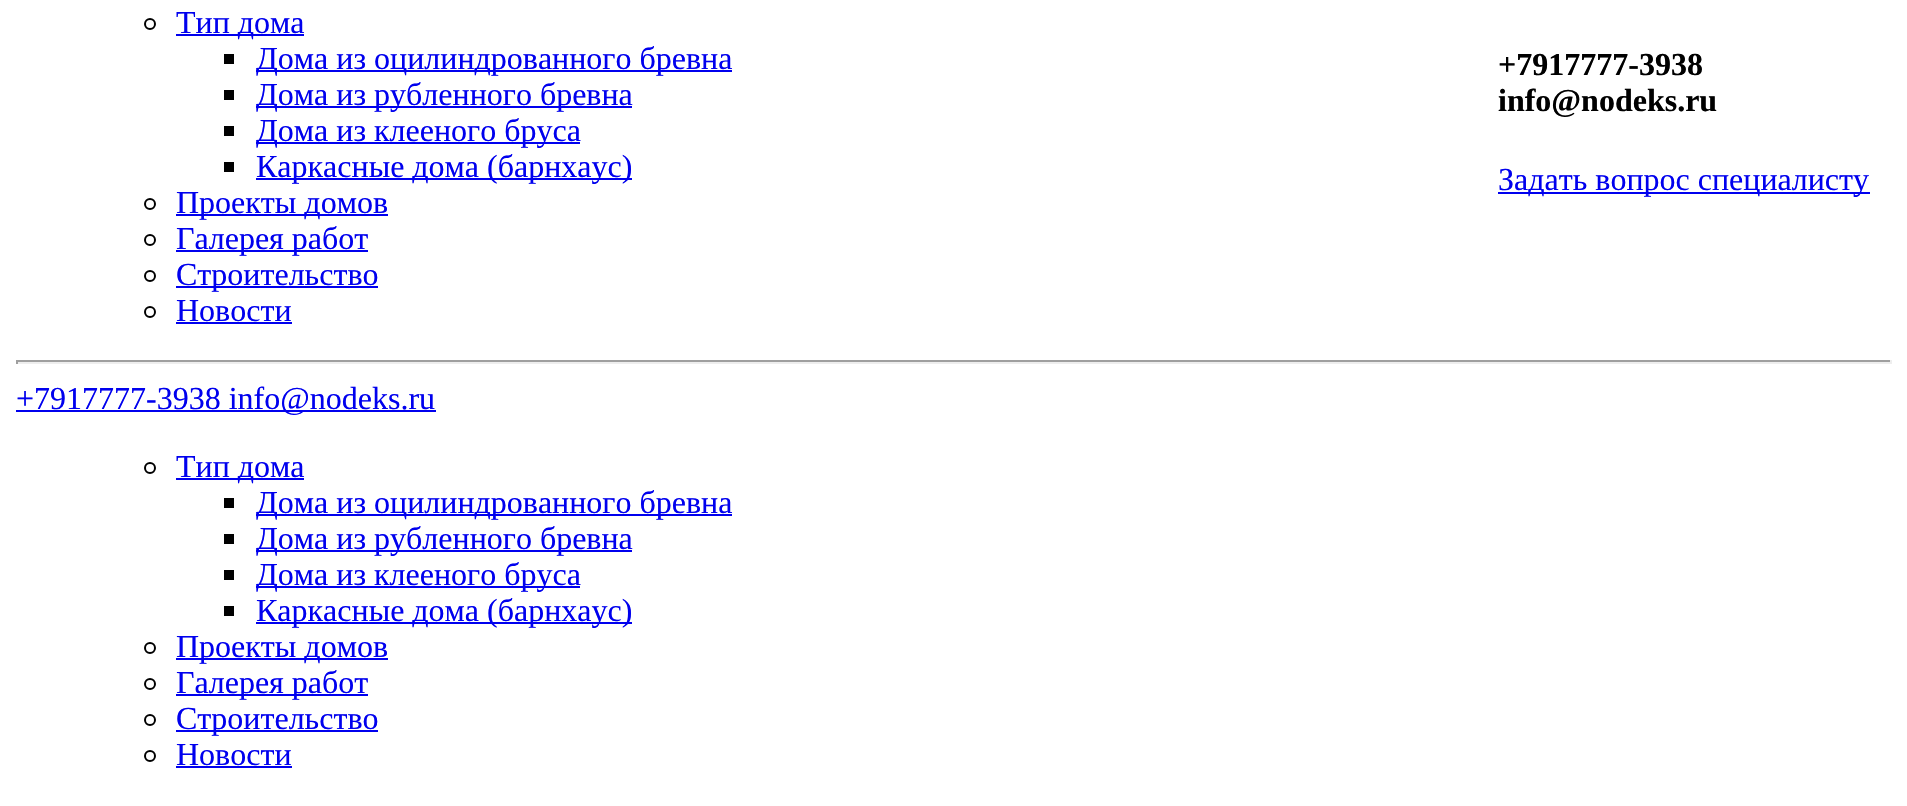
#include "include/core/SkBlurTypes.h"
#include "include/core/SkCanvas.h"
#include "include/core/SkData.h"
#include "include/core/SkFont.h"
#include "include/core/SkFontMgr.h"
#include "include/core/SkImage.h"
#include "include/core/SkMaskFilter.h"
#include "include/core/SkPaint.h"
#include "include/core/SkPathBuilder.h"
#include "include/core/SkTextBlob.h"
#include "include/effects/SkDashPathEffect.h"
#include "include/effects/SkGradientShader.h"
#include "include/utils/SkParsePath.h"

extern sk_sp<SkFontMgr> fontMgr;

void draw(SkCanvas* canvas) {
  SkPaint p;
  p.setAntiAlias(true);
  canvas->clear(SK_ColorWHITE);
  p.setStyle(SkPaint::kStroke_Style);
  p.setStrokeWidth(2);
  p.setColor(SK_ColorBLACK);
  canvas->drawCircle(150, 24, 5, p);
  p.setStyle(SkPaint::kFill_Style);
  p.setColor(SkColorSetRGB(0, 0, 238));
  canvas->drawRect(SkRect::MakeLTRB(176, 34, 304, 36), p);
  p.setColor(SK_ColorBLACK);
  canvas->drawRect(SkRect::MakeLTRB(224, 54, 234, 64), p);
  p.setColor(SkColorSetRGB(0, 0, 238));
  canvas->drawRect(SkRect::MakeLTRB(256, 70, 732, 72), p);
  p.setColor(SK_ColorBLACK);
  canvas->drawRect(SkRect::MakeLTRB(224, 90, 234, 100), p);
  p.setColor(SkColorSetRGB(0, 0, 238));
  canvas->drawRect(SkRect::MakeLTRB(256, 106, 632, 108), p);
  p.setColor(SK_ColorBLACK);
  canvas->drawRect(SkRect::MakeLTRB(224, 126, 234, 136), p);
  p.setColor(SkColorSetRGB(0, 0, 238));
  canvas->drawRect(SkRect::MakeLTRB(256, 142, 580, 144), p);
  p.setColor(SK_ColorBLACK);
  canvas->drawRect(SkRect::MakeLTRB(224, 162, 234, 172), p);
  p.setColor(SkColorSetRGB(0, 0, 238));
  canvas->drawRect(SkRect::MakeLTRB(256, 178, 632, 180), p);
  p.setStyle(SkPaint::kStroke_Style);
  p.setColor(SK_ColorBLACK);
  canvas->drawCircle(150, 204, 5, p);
  p.setStyle(SkPaint::kFill_Style);
  p.setColor(SkColorSetRGB(0, 0, 238));
  canvas->drawRect(SkRect::MakeLTRB(176, 214, 388, 216), p);
  p.setStyle(SkPaint::kStroke_Style);
  p.setColor(SK_ColorBLACK);
  canvas->drawCircle(150, 240, 5, p);
  p.setStyle(SkPaint::kFill_Style);
  p.setColor(SkColorSetRGB(0, 0, 238));
  canvas->drawRect(SkRect::MakeLTRB(176, 250, 368, 252), p);
  p.setStyle(SkPaint::kStroke_Style);
  p.setColor(SK_ColorBLACK);
  canvas->drawCircle(150, 276, 5, p);
  p.setStyle(SkPaint::kFill_Style);
  p.setColor(SkColorSetRGB(0, 0, 238));
  canvas->drawRect(SkRect::MakeLTRB(176, 286, 378, 288), p);
  p.setStyle(SkPaint::kStroke_Style);
  p.setColor(SK_ColorBLACK);
  canvas->drawCircle(150, 312, 5, p);
  p.setStyle(SkPaint::kFill_Style);
  p.setColor(SkColorSetRGB(0, 0, 238));
  canvas->drawRect(SkRect::MakeLTRB(176, 322, 292, 324), p);
  p.setColor(SkColorSetRGB(159, 159, 159));
  canvas->drawRect(SkRect::MakeLTRB(16, 360, 1892, 362), p);
  p.setColor(SkColorSetRGB(238, 238, 238));
  canvas->drawRect(SkRect::MakeLTRB(1890, 360, 1892, 364), p);
  canvas->drawRect(SkRect::MakeLTRB(16, 362, 1892, 364), p);
  p.setColor(SkColorSetRGB(159, 159, 159));
  canvas->drawRect(SkRect::MakeLTRB(16, 360, 18, 364), p);
  p.setColor(SkColorSetRGB(0, 0, 238));
  canvas->drawRect(SkRect::MakeLTRB(16, 410, 436, 412), p);
  p.setStyle(SkPaint::kStroke_Style);
  p.setColor(SK_ColorBLACK);
  canvas->drawCircle(150, 468, 5, p);
  p.setStyle(SkPaint::kFill_Style);
  p.setColor(SkColorSetRGB(0, 0, 238));
  canvas->drawRect(SkRect::MakeLTRB(176, 478, 304, 480), p);
  p.setColor(SK_ColorBLACK);
  canvas->drawRect(SkRect::MakeLTRB(224, 498, 234, 508), p);
  p.setColor(SkColorSetRGB(0, 0, 238));
  canvas->drawRect(SkRect::MakeLTRB(256, 514, 732, 516), p);
  p.setColor(SK_ColorBLACK);
  canvas->drawRect(SkRect::MakeLTRB(224, 534, 234, 544), p);
  p.setColor(SkColorSetRGB(0, 0, 238));
  canvas->drawRect(SkRect::MakeLTRB(256, 550, 632, 552), p);
  p.setColor(SK_ColorBLACK);
  canvas->drawRect(SkRect::MakeLTRB(224, 570, 234, 580), p);
  p.setColor(SkColorSetRGB(0, 0, 238));
  canvas->drawRect(SkRect::MakeLTRB(256, 586, 580, 588), p);
  p.setColor(SK_ColorBLACK);
  canvas->drawRect(SkRect::MakeLTRB(224, 606, 234, 616), p);
  p.setColor(SkColorSetRGB(0, 0, 238));
  canvas->drawRect(SkRect::MakeLTRB(256, 622, 632, 624), p);
  p.setStyle(SkPaint::kStroke_Style);
  p.setColor(SK_ColorBLACK);
  canvas->drawCircle(150, 648, 5, p);
  p.setStyle(SkPaint::kFill_Style);
  p.setColor(SkColorSetRGB(0, 0, 238));
  canvas->drawRect(SkRect::MakeLTRB(176, 658, 388, 660), p);
  p.setStyle(SkPaint::kStroke_Style);
  p.setColor(SK_ColorBLACK);
  canvas->drawCircle(150, 684, 5, p);
  p.setStyle(SkPaint::kFill_Style);
  p.setColor(SkColorSetRGB(0, 0, 238));
  canvas->drawRect(SkRect::MakeLTRB(176, 694, 368, 696), p);
  p.setStyle(SkPaint::kStroke_Style);
  p.setColor(SK_ColorBLACK);
  canvas->drawCircle(150, 720, 5, p);
  p.setStyle(SkPaint::kFill_Style);
  p.setColor(SkColorSetRGB(0, 0, 238));
  canvas->drawRect(SkRect::MakeLTRB(176, 730, 378, 732), p);
  p.setStyle(SkPaint::kStroke_Style);
  p.setColor(SK_ColorBLACK);
  canvas->drawCircle(150, 756, 5, p);
  p.setStyle(SkPaint::kFill_Style);
  p.setColor(SkColorSetRGB(0, 0, 238));
  canvas->drawRect(SkRect::MakeLTRB(176, 766, 292, 768), p);
  canvas->drawRect(SkRect::MakeLTRB(1498, 192, 1870, 194), p);
  SkFont font1(fontMgr->matchFamilyStyle("Liberation Serif", SkFontStyle::Normal()), 32);
  font1.setSubpixel(true);
  canvas->drawString("Тип дома", 176, 33, font1, p);
  canvas->drawString("Дома из оцилиндрованного бревна", 256, 69, font1, p);
  canvas->drawString("Дома из рубленного бревна", 256, 105, font1, p);
  canvas->drawString("Дома из клееного бруса", 256, 141, font1, p);
  canvas->drawString("Каркасные дома (барнхаус)", 256, 177, font1, p);
  canvas->drawString("Проекты домов", 176, 213, font1, p);
  canvas->drawString("Галерея работ", 176, 249, font1, p);
  canvas->drawString("Строительство", 176, 285, font1, p);
  canvas->drawString("Новости", 176, 321, font1, p);
  canvas->drawString("+7917777-3938 info@nodeks.ru", 16, 409, font1, p);
  canvas->drawString("Тип дома", 176, 477, font1, p);
  canvas->drawString("Дома из оцилиндрованного бревна", 256, 513, font1, p);
  canvas->drawString("Дома из рубленного бревна", 256, 549, font1, p);
  canvas->drawString("Дома из клееного бруса", 256, 585, font1, p);
  canvas->drawString("Каркасные дома (барнхаус)", 256, 621, font1, p);
  canvas->drawString("Проекты домов", 176, 657, font1, p);
  canvas->drawString("Галерея работ", 176, 693, font1, p);
  canvas->drawString("Строительство", 176, 729, font1, p);
  canvas->drawString("Новости", 176, 765, font1, p);
  SkFont font2(fontMgr->matchFamilyStyle("Liberation Serif", SkFontStyle::Bold()), 32);
  font2.setSubpixel(true);
  p.setColor(SK_ColorBLACK);
  canvas->drawString("+7917777-3938", 1498, 75, font2, p);
  canvas->drawString("info@nodeks.ru", 1498, 111, font2, p);
  p.setColor(SkColorSetRGB(0, 0, 238));
  canvas->drawString("Задать вопрос специалисту", 1498, 190, font1, p);
}
